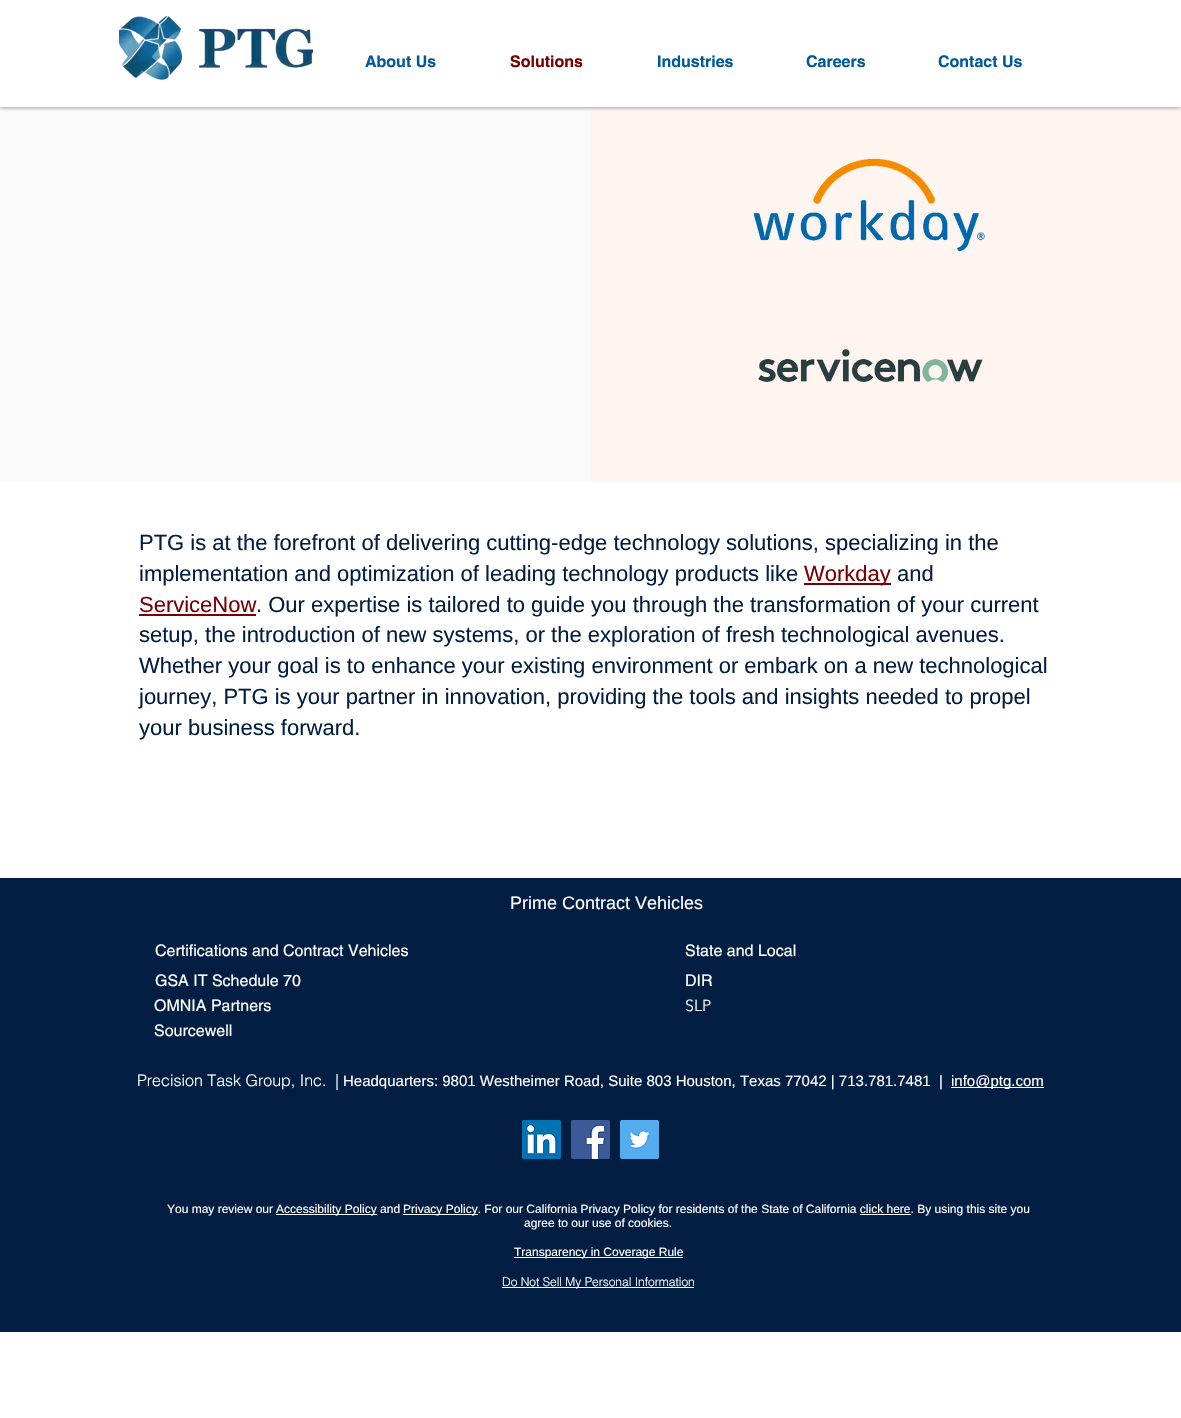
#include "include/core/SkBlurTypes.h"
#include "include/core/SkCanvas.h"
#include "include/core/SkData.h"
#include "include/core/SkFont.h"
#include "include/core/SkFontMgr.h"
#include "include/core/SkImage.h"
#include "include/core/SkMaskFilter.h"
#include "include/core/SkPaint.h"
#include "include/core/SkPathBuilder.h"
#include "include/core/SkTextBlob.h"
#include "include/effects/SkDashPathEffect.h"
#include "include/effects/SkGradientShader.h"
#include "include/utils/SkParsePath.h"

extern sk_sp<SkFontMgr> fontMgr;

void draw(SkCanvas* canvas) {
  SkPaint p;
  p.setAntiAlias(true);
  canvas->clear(SK_ColorWHITE);
  p.setColor(SkColorSetRGB(250, 250, 250));
  canvas->drawRect(SkRect::MakeLTRB(0, 107, 591, 482), p);
  p.setColor(SkColorSetRGB(255, 245, 240));
  canvas->drawRect(SkRect::MakeLTRB(591, 107, 1181, 482), p);
  canvas->save();
  canvas->clipRect(SkRect::MakeLTRB(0, 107, 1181, 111));
  p.setColor(SkColorSetARGB(128, 0, 0, 0));
  p.setMaskFilter(SkMaskFilter::MakeBlur(kNormal_SkBlurStyle, 2.5f));
  canvas->drawRect(SkRect::MakeLTRB(0, 0, 1181, 107), p);
  p.setMaskFilter(nullptr);
  canvas->restore();
  canvas->drawImageRect(SkImages::DeferredFromEncodedData(SkData::MakeFromFileName("images/1.png")), SkRect::MakeLTRB(119, 16, 313, 80), SkSamplingOptions());
  canvas->drawImageRect(SkImages::DeferredFromEncodedData(SkData::MakeFromFileName("images/2.png")), SkRect::MakeLTRB(753, 158, 985, 252), SkSamplingOptions());
  canvas->drawImageRect(SkImages::DeferredFromEncodedData(SkData::MakeFromFileName("images/3.png")), SkRect::MakeLTRB(758, 349, 983, 383), SkSamplingOptions());
  p.setColor(SkColorSetRGB(120, 0, 0));
  canvas->drawRect(SkRect::MakeLTRB(804, 583, 891, 585), p);
  canvas->drawRect(SkRect::MakeLTRB(139, 614, 256, 616), p);
  p.setColor(SkColorSetRGB(2, 31, 67));
  canvas->drawRect(SkRect::MakeLTRB(0, 878, 1181, 1332), p);
  p.setColor(SK_ColorWHITE);
  canvas->drawRect(SkRect::MakeLTRB(951, 1087, 1044, 1088), p);
  canvas->drawImageRect(SkImages::DeferredFromEncodedData(SkData::MakeFromFileName("images/4.png")), SkRect::MakeLTRB(522, 1120, 561, 1159), SkSamplingOptions());
  canvas->drawImageRect(SkImages::DeferredFromEncodedData(SkData::MakeFromFileName("images/5.png")), SkRect::MakeLTRB(571, 1120, 610, 1159), SkSamplingOptions());
  canvas->drawImageRect(SkImages::DeferredFromEncodedData(SkData::MakeFromFileName("images/6.png")), SkRect::MakeLTRB(620, 1120, 659, 1159), SkSamplingOptions());
  canvas->drawRect(SkRect::MakeLTRB(276, 1214, 377, 1215), p);
  canvas->drawRect(SkRect::MakeLTRB(403, 1214, 478, 1215), p);
  canvas->drawRect(SkRect::MakeLTRB(860, 1214, 911, 1215), p);
  canvas->drawRect(SkRect::MakeLTRB(514, 1257, 683, 1258), p);
  canvas->drawRect(SkRect::MakeLTRB(502, 1287, 694, 1288), p);
  SkFont font1(fontMgr->matchFamilyStyle("helvetica", SkFontStyle::Bold()), 16);
  font1.setSubpixel(true);
  p.setColor(SkColorSetRGB(0, 90, 154));
  canvas->drawString("About Us", 365, 67, font1, p);
  p.setColor(SkColorSetRGB(120, 0, 0));
  canvas->drawString("Solutions", 510, 67, font1, p);
  p.setColor(SkColorSetRGB(0, 90, 154));
  canvas->drawString("Industries", 657, 67, font1, p);
  canvas->drawString("Careers", 806, 67, font1, p);
  canvas->drawString("Contact Us", 938, 67, font1, p);
  SkFont font2(fontMgr->matchFamilyStyle("Liberation Sans", SkFontStyle::Normal()), 22);
  font2.setSubpixel(true);
  p.setColor(SkColorSetRGB(2, 31, 67));
  canvas->drawString("PTG is at the forefront of delivering cutting-edge technology solutions, specializing in the", 139, 550, font2, p);
  canvas->drawString("implementation and optimization of leading technology products like", 139, 581, font2, p);
  p.setColor(SkColorSetRGB(120, 0, 0));
  canvas->drawString("Workday", 804, 581, font2, p);
  p.setColor(SkColorSetRGB(2, 31, 67));
  canvas->drawString("and", 897, 581, font2, p);
  p.setColor(SkColorSetRGB(120, 0, 0));
  canvas->drawString("ServiceNow", 139, 612, font2, p);
  p.setColor(SkColorSetRGB(2, 31, 67));
  canvas->drawString(". Our expertise is tailored to guide you through the transformation of your current", 256, 612, font2, p);
  canvas->drawString("setup, the introduction of new systems, or the exploration of fresh technological avenues.", 139, 642, font2, p);
  canvas->drawString("Whether your goal is to enhance your existing environment or embark on a new technological", 139, 673, font2, p);
  canvas->drawString("journey, PTG is your partner in innovation, providing the tools and insights needed to propel", 139, 704, font2, p);
  canvas->drawString("your business forward.", 139, 735, font2, p);
  SkFont font3(fontMgr->matchFamilyStyle("Liberation Sans", SkFontStyle::Normal()), 18);
  font3.setSubpixel(true);
  p.setColor(SK_ColorWHITE);
  canvas->drawString("Prime Contract Vehicles", 510, 909, font3, p);
  SkFont font4(fontMgr->matchFamilyStyle("helvetica", SkFontStyle::Normal()), 16);
  font4.setSubpixel(true);
  canvas->drawString("Certifications and Contract Vehicles", 155, 956, font4, p);
  canvas->drawString("State and Local", 685, 956, font4, p);
  canvas->drawString("GSA IT Schedule 70", 155, 986, font4, p);
  canvas->drawString("DIR", 685, 986, font4, p);
  canvas->drawString("OMNIA Partners", 154, 1011, font4, p);
  SkFont font5(fontMgr->matchFamilyStyle("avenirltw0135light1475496", SkFontStyle(300, SkFontStyle::kNormal_Width, SkFontStyle::kUpright_Slant)), 16);
  font5.setSubpixel(true);
  canvas->drawString("SLP", 685, 1011, font5, p);
  canvas->drawString("Sourcewell", 154, 1036, font4, p);
  SkFont font6(fontMgr->matchFamilyStyle("helvetica", SkFontStyle(300, SkFontStyle::kNormal_Width, SkFontStyle::kUpright_Slant)), 16);
  font6.setSubpixel(true);
  canvas->drawString("Precision Task Group, Inc.  |", 137, 1086, font6, p);
  SkFont font7(fontMgr->matchFamilyStyle("Liberation Sans", SkFontStyle::Normal()), 15);
  font7.setSubpixel(true);
  canvas->drawString("Headquarters: 9801 Westheimer Road, Suite 803 Houston, Texas 77042 | 713.781.7481  |", 343, 1086, font7, p);
  canvas->drawString("info@ptg.com", 951, 1086, font7, p);
  SkFont font8(fontMgr->matchFamilyStyle("Liberation Sans", SkFontStyle::Normal()), 12);
  font8.setSubpixel(true);
  canvas->drawString("You may review our", 167, 1213, font8, p);
  canvas->drawString("Accessibility Policy and", 276, 1213, font8, p);
  canvas->drawString("Privacy Policy. For our California Privacy Policy for residents of the State of California click here. By using this site you", 403, 1213, font8, p);
  canvas->drawString("agree to our use of cookies.", 524, 1227, font8, p);
  canvas->drawString("Transparency in Coverage Rule", 514, 1256, font8, p);
  SkFont font9(fontMgr->matchFamilyStyle("helvetica", SkFontStyle(300, SkFontStyle::kNormal_Width, SkFontStyle::kUpright_Slant)), 12);
  font9.setSubpixel(true);
  canvas->drawString("Do Not Sell My Personal Information", 502, 1286, font9, p);
}
